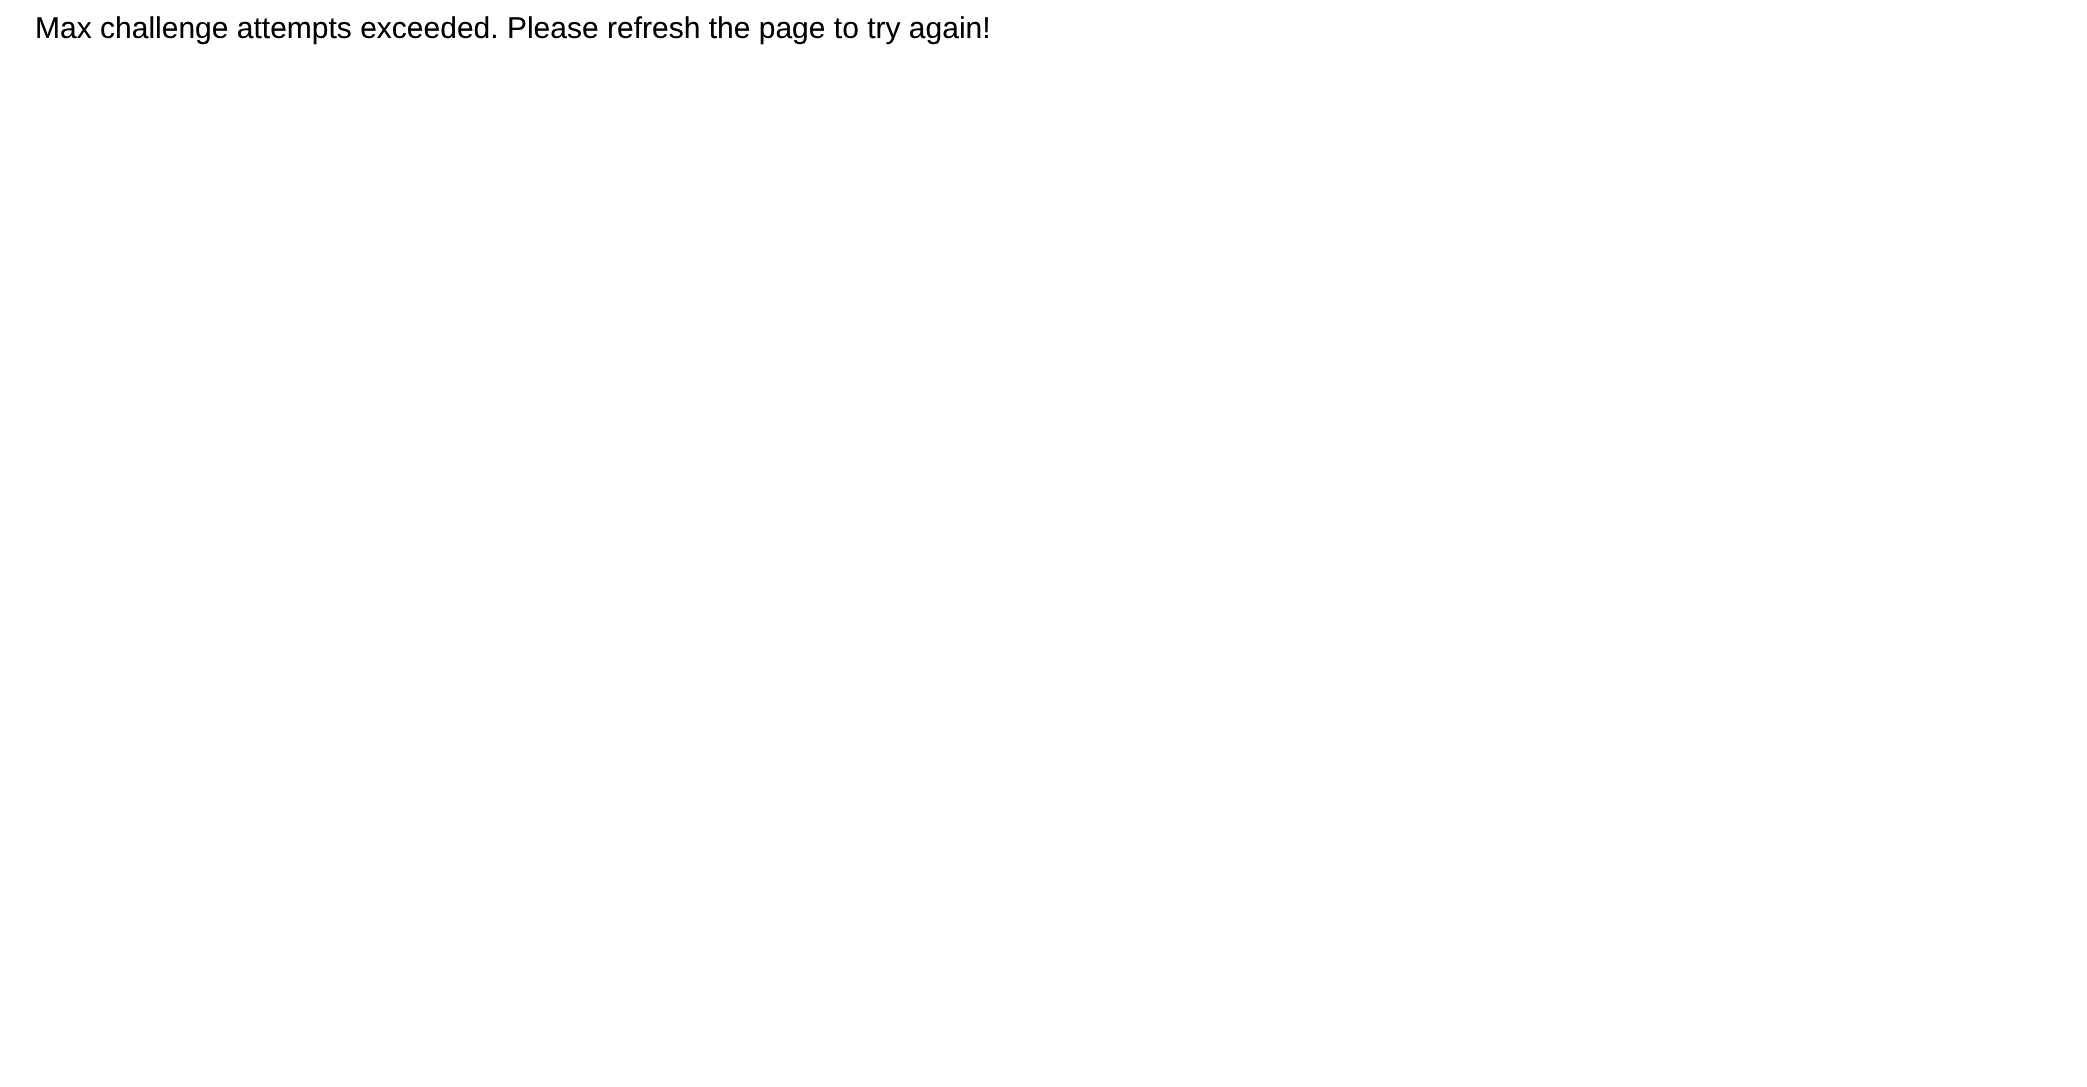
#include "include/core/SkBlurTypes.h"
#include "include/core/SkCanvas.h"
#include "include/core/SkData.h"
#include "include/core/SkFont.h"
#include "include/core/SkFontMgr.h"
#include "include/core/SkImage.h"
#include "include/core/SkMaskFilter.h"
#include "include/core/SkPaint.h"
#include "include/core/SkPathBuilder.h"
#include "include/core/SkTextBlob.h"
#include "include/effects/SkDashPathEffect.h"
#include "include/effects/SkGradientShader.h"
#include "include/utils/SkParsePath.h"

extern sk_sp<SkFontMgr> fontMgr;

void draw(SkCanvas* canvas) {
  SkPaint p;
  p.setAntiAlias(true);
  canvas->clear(SK_ColorWHITE);
  SkFont font1(fontMgr->matchFamilyStyle("Liberation Sans", SkFontStyle::Normal()), 30);
  font1.setSubpixel(true);
  p.setColor(SK_ColorBLACK);
  canvas->drawString("Max challenge attempts exceeded. Please refresh the page to try again!", 35, 38, font1, p);
}
